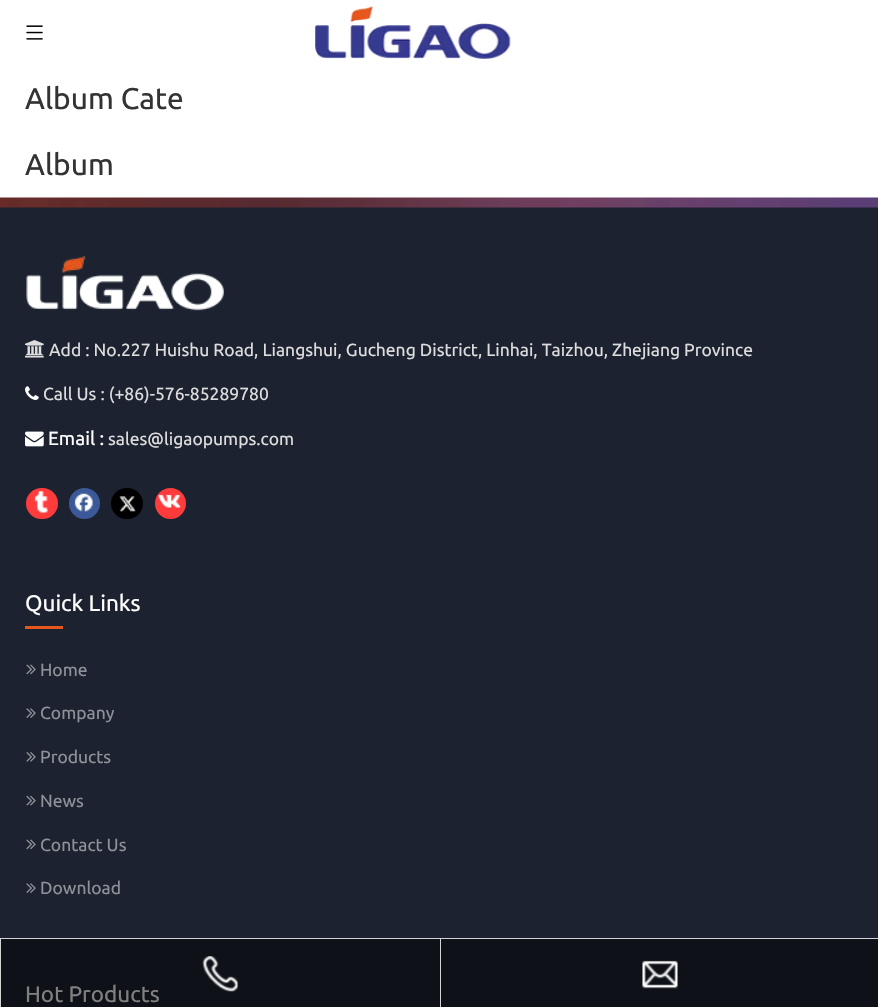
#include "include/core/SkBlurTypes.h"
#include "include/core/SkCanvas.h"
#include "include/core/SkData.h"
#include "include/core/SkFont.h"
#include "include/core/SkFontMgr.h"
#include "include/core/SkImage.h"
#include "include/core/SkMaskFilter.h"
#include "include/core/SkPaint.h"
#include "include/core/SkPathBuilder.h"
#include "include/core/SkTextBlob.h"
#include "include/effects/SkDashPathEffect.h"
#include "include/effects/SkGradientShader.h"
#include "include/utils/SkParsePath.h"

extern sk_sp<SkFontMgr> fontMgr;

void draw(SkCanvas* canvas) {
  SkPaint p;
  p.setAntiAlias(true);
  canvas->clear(SK_ColorWHITE);
  canvas->drawImageRect(SkImages::DeferredFromEncodedData(SkData::MakeFromFileName("images/1.png")), SkRect::MakeLTRB(26, 25, 43, 40), SkSamplingOptions());
  canvas->drawImageRect(SkImages::DeferredFromEncodedData(SkData::MakeFromFileName("images/2.png")), SkRect::MakeLTRB(315, 6, 511, 59), SkSamplingOptions());
  p.setColor(SkColorSetRGB(28, 34, 48));
  canvas->drawRect(SkRect::MakeLTRB(0, 207, 878, 938), p);
  canvas->drawImageRect(SkImages::DeferredFromEncodedData(SkData::MakeFromFileName("images/3.png")), SkRect::MakeLTRB(0, 197, 878, 208), SkSamplingOptions());
  p.setColor(SkColorSetRGB(14, 17, 24));
  canvas->drawRect(SkRect::MakeLTRB(1, 939, 440, 1007), p);
  canvas->drawImageRect(SkImages::DeferredFromEncodedData(SkData::MakeFromFileName("images/4.png")), SkRect::MakeLTRB(26, 256, 224, 311), SkSamplingOptions());
  canvas->drawImageRect(SkImages::DeferredFromEncodedData(SkData::MakeFromFileName("images/5.png")), SkRect::MakeLTRB(25, 340, 44, 358), SkSamplingOptions());
  canvas->drawImageRect(SkImages::DeferredFromEncodedData(SkData::MakeFromFileName("images/6.png")), SkRect::MakeLTRB(25, 386, 39, 400), SkSamplingOptions());
  canvas->drawImageRect(SkImages::DeferredFromEncodedData(SkData::MakeFromFileName("images/7.png")), SkRect::MakeLTRB(25, 431, 44, 447), SkSamplingOptions());
  p.setColor(SkColorSetRGB(255, 59, 59));
  canvas->drawRoundRect(SkRect::MakeLTRB(26, 488, 58, 519), 15.5f, 15.5f, p);
  canvas->drawImageRect(SkImages::DeferredFromEncodedData(SkData::MakeFromFileName("images/8.png")), SkRect::MakeLTRB(34, 491, 48, 513), SkSamplingOptions());
  p.setColor(SkColorSetRGB(59, 89, 152));
  canvas->drawCircle(84.5f, 503.5f, 15.5f, p);
  canvas->drawImageRect(SkImages::DeferredFromEncodedData(SkData::MakeFromFileName("images/9.png")), SkRect::MakeLTRB(74, 493, 93, 512), SkSamplingOptions());
  p.setColor(SK_ColorBLACK);
  canvas->drawRoundRect(SkRect::MakeLTRB(111, 488, 143, 519), 15.5f, 15.5f, p);
  canvas->drawImageRect(SkImages::DeferredFromEncodedData(SkData::MakeFromFileName("images/10.png")), SkRect::MakeLTRB(119, 496, 136, 512), SkSamplingOptions());
  p.setColor(SkColorSetRGB(255, 59, 59));
  canvas->drawCircle(170.5f, 503.5f, 15.5f, p);
  canvas->drawImageRect(SkImages::DeferredFromEncodedData(SkData::MakeFromFileName("images/11.png")), SkRect::MakeLTRB(158, 494, 181, 508), SkSamplingOptions());
  p.setColor(SkColorSetRGB(230, 87, 30));
  canvas->drawRect(SkRect::MakeLTRB(25, 626, 63, 629), p);
  canvas->drawImageRect(SkImages::DeferredFromEncodedData(SkData::MakeFromFileName("images/12.png")), SkRect::MakeLTRB(26, 664, 36, 675), SkSamplingOptions());
  canvas->drawImageRect(SkImages::DeferredFromEncodedData(SkData::MakeFromFileName("images/13.png")), SkRect::MakeLTRB(26, 708, 36, 718), SkSamplingOptions());
  canvas->drawImageRect(SkImages::DeferredFromEncodedData(SkData::MakeFromFileName("images/14.png")), SkRect::MakeLTRB(26, 752, 36, 762), SkSamplingOptions());
  canvas->drawImageRect(SkImages::DeferredFromEncodedData(SkData::MakeFromFileName("images/15.png")), SkRect::MakeLTRB(26, 795, 36, 806), SkSamplingOptions());
  canvas->drawImageRect(SkImages::DeferredFromEncodedData(SkData::MakeFromFileName("images/12.png")), SkRect::MakeLTRB(26, 839, 36, 850), SkSamplingOptions());
  canvas->drawImageRect(SkImages::DeferredFromEncodedData(SkData::MakeFromFileName("images/13.png")), SkRect::MakeLTRB(26, 883, 36, 893), SkSamplingOptions());
  p.setColor(SkColorSetRGB(211, 211, 211));
  canvas->drawRect(SkRect::MakeLTRB(0, 938, 878, 939), p);
  canvas->drawRect(SkRect::MakeLTRB(0, 939, 1, 1007), p);
  canvas->drawImageRect(SkImages::DeferredFromEncodedData(SkData::MakeFromFileName("images/16.png")), SkRect::MakeLTRB(202, 956, 238, 992), SkSamplingOptions());
  canvas->drawRect(SkRect::MakeLTRB(440, 939, 441, 1007), p);
  p.setColor(SkColorSetRGB(14, 17, 24));
  canvas->drawRect(SkRect::MakeLTRB(441, 939, 878, 1007), p);
  canvas->drawImageRect(SkImages::DeferredFromEncodedData(SkData::MakeFromFileName("images/17.png")), SkRect::MakeLTRB(642, 960, 678, 989), SkSamplingOptions());
  SkFont font1(fontMgr->matchFamilyStyle("Ubuntu", SkFontStyle::Normal()), 30);
  font1.setSubpixel(true);
  p.setColor(SkColorSetRGB(51, 51, 51));
  canvas->drawString("Album Cate", 25, 109, font1, p);
  canvas->drawString("Album", 25, 175, font1, p);
  SkFont font2(fontMgr->matchFamilyStyle("Ubuntu", SkFontStyle::Normal()), 17.5f);
  font2.setSubpixel(true);
  p.setColor(SkColorSetRGB(221, 221, 221));
  canvas->drawString("Add : No.227 Huishu Road, Liangshui, Gucheng District, Linhai, Taizhou, Zhejiang Province", 49, 356, font2, p);
  canvas->drawString("Call Us : (+86)-576-85289780", 43, 400, font2, p);
  SkFont font3(fontMgr->matchFamilyStyle("Ubuntu", SkFontStyle::Normal()), 19);
  font3.setSubpixel(true);
  p.setColor(SK_ColorWHITE);
  canvas->drawString("Email :", 48, 445, font3, p);
  p.setColor(SkColorSetRGB(221, 221, 221));
  canvas->drawString("sales@ligaopumps.com", 108, 445, font2, p);
  SkFont font4(fontMgr->matchFamilyStyle("Ubuntu", SkFontStyle::Normal()), 22.5f);
  font4.setSubpixel(true);
  p.setColor(SK_ColorWHITE);
  canvas->drawString("Quick Links", 25, 611, font4, p);
  p.setColor(SkColorSetRGB(142, 145, 152));
  canvas->drawString("Home", 40, 676, font2, p);
  canvas->drawString("Company", 40, 719, font2, p);
  canvas->drawString("Products", 40, 763, font2, p);
  canvas->drawString("News", 40, 807, font2, p);
  canvas->drawString("Contact Us", 40, 851, font2, p);
  canvas->drawString("Download", 40, 894, font2, p);
  p.setColor(SkColorSetRGB(128, 128, 128));
  canvas->drawString("Hot Products", 25, 1002, font4, p);
}
